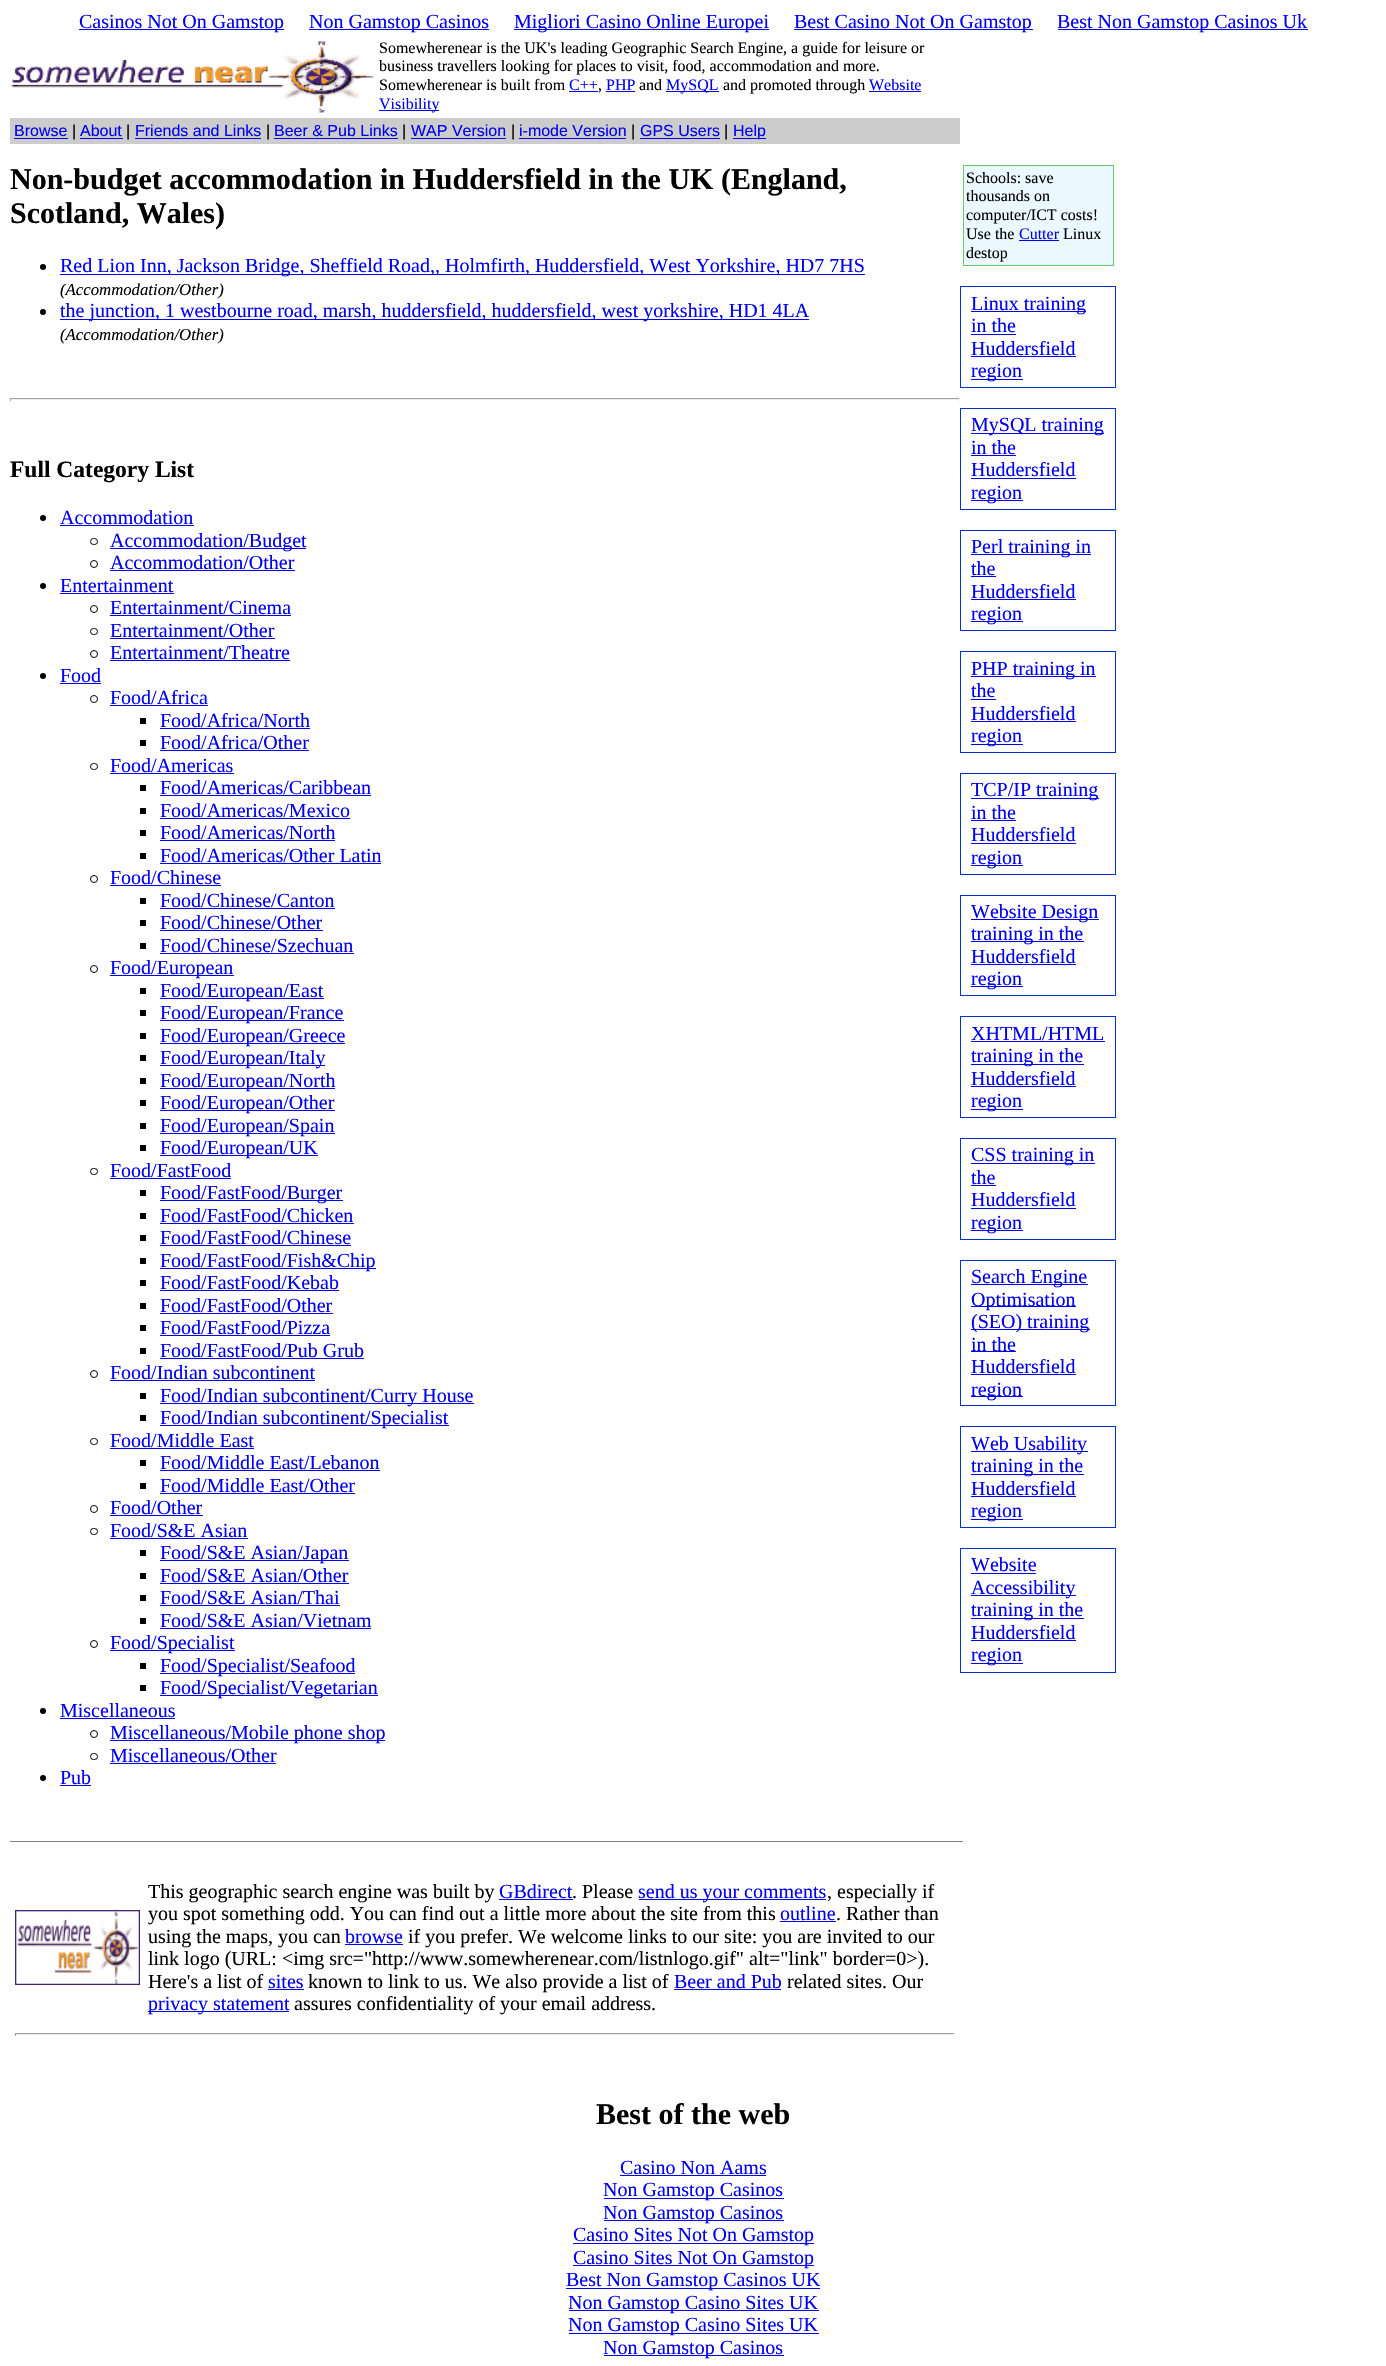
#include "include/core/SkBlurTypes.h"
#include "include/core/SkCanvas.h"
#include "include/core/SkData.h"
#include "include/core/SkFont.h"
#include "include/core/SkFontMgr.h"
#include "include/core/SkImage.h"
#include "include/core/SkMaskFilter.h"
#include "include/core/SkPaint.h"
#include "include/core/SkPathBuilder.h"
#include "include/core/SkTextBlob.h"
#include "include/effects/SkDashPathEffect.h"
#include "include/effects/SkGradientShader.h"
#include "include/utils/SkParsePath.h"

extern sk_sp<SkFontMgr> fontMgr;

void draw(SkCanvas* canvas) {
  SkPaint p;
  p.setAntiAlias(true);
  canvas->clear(SK_ColorWHITE);
  p.setColor(SkColorSetRGB(0, 0, 238));
  canvas->drawRect(SkRect::MakeLTRB(79, 29, 284, 30), p);
  canvas->drawRect(SkRect::MakeLTRB(309, 29, 489, 30), p);
  canvas->drawRect(SkRect::MakeLTRB(514, 29, 769, 30), p);
  canvas->drawRect(SkRect::MakeLTRB(794, 29, 1033, 30), p);
  canvas->drawRect(SkRect::MakeLTRB(1058, 29, 1308, 30), p);
  canvas->drawImageRect(SkImages::DeferredFromEncodedData(SkData::MakeFromFileName("images/1.png")), SkRect::MakeLTRB(11, 41, 375, 113), SkSamplingOptions());
  canvas->drawRect(SkRect::MakeLTRB(569, 91, 598, 92), p);
  canvas->drawRect(SkRect::MakeLTRB(606, 91, 635, 92), p);
  canvas->drawRect(SkRect::MakeLTRB(666, 91, 719, 92), p);
  canvas->drawRect(SkRect::MakeLTRB(869, 91, 921, 92), p);
  canvas->drawRect(SkRect::MakeLTRB(379, 110, 439, 111), p);
  p.setColor(SkColorSetRGB(204, 204, 204));
  canvas->drawRect(SkRect::MakeLTRB(10, 118, 960, 144), p);
  p.setColor(SkColorSetRGB(0, 0, 238));
  canvas->drawRect(SkRect::MakeLTRB(14, 138, 68, 139), p);
  canvas->drawRect(SkRect::MakeLTRB(80, 138, 123, 139), p);
  canvas->drawRect(SkRect::MakeLTRB(135, 138, 261, 139), p);
  canvas->drawRect(SkRect::MakeLTRB(274, 138, 398, 139), p);
  canvas->drawRect(SkRect::MakeLTRB(411, 138, 506, 139), p);
  canvas->drawRect(SkRect::MakeLTRB(519, 138, 626, 139), p);
  canvas->drawRect(SkRect::MakeLTRB(640, 138, 720, 139), p);
  canvas->drawRect(SkRect::MakeLTRB(733, 138, 766, 139), p);
  p.setColor(SK_ColorBLACK);
  canvas->drawCircle(43, 267, 3, p);
  p.setColor(SkColorSetRGB(0, 0, 238));
  canvas->drawRect(SkRect::MakeLTRB(60, 274, 865, 275), p);
  p.setColor(SK_ColorBLACK);
  canvas->drawCircle(43, 312, 3, p);
  p.setColor(SkColorSetRGB(0, 0, 238));
  canvas->drawRect(SkRect::MakeLTRB(60, 319, 809, 320), p);
  p.setColor(SkColorSetRGB(159, 159, 159));
  canvas->drawRect(SkRect::MakeLTRB(10, 398, 960, 399), p);
  p.setColor(SkColorSetRGB(238, 238, 238));
  canvas->drawRect(SkRect::MakeLTRB(959, 398, 960, 401), p);
  canvas->drawRect(SkRect::MakeLTRB(10, 399, 960, 400), p);
  p.setColor(SkColorSetRGB(159, 159, 159));
  canvas->drawRect(SkRect::MakeLTRB(10, 398, 11, 401), p);
  p.setColor(SK_ColorBLACK);
  canvas->drawCircle(43, 518, 3, p);
  p.setColor(SkColorSetRGB(0, 0, 238));
  canvas->drawRect(SkRect::MakeLTRB(60, 525, 194, 526), p);
  p.setStyle(SkPaint::kStroke_Style);
  p.setStrokeWidth(1);
  p.setColor(SK_ColorBLACK);
  canvas->drawRoundRect(SkRect::MakeLTRB(90.5f, 538.5f, 97.5f, 544.5f), 3, 3, p);
  p.setStyle(SkPaint::kFill_Style);
  p.setColor(SkColorSetRGB(0, 0, 238));
  canvas->drawRect(SkRect::MakeLTRB(110, 548, 306, 549), p);
  p.setStyle(SkPaint::kStroke_Style);
  p.setColor(SK_ColorBLACK);
  canvas->drawCircle(94, 564, 3.5f, p);
  p.setStyle(SkPaint::kFill_Style);
  p.setColor(SkColorSetRGB(0, 0, 238));
  canvas->drawRect(SkRect::MakeLTRB(110, 570, 295, 571), p);
  p.setColor(SK_ColorBLACK);
  canvas->drawCircle(43, 586, 3, p);
  p.setColor(SkColorSetRGB(0, 0, 238));
  canvas->drawRect(SkRect::MakeLTRB(60, 593, 174, 594), p);
  p.setStyle(SkPaint::kStroke_Style);
  p.setColor(SK_ColorBLACK);
  canvas->drawCircle(94, 609, 3.5f, p);
  p.setStyle(SkPaint::kFill_Style);
  p.setColor(SkColorSetRGB(0, 0, 238));
  canvas->drawRect(SkRect::MakeLTRB(110, 615, 291, 616), p);
  p.setStyle(SkPaint::kStroke_Style);
  p.setColor(SK_ColorBLACK);
  canvas->drawRoundRect(SkRect::MakeLTRB(90.5f, 628.5f, 97.5f, 634.5f), 3, 3, p);
  p.setStyle(SkPaint::kFill_Style);
  p.setColor(SkColorSetRGB(0, 0, 238));
  canvas->drawRect(SkRect::MakeLTRB(110, 638, 275, 639), p);
  p.setStyle(SkPaint::kStroke_Style);
  p.setColor(SK_ColorBLACK);
  canvas->drawCircle(94, 654, 3.5f, p);
  p.setStyle(SkPaint::kFill_Style);
  p.setColor(SkColorSetRGB(0, 0, 238));
  canvas->drawRect(SkRect::MakeLTRB(110, 660, 290, 661), p);
  p.setColor(SK_ColorBLACK);
  canvas->drawCircle(43, 676, 3, p);
  p.setColor(SkColorSetRGB(0, 0, 238));
  canvas->drawRect(SkRect::MakeLTRB(60, 683, 101, 684), p);
  p.setStyle(SkPaint::kStroke_Style);
  p.setColor(SK_ColorBLACK);
  canvas->drawCircle(94, 699, 3.5f, p);
  p.setStyle(SkPaint::kFill_Style);
  p.setColor(SkColorSetRGB(0, 0, 238));
  canvas->drawRect(SkRect::MakeLTRB(110, 705, 208, 706), p);
  p.setColor(SK_ColorBLACK);
  canvas->drawRect(SkRect::MakeLTRB(140, 718, 146, 724), p);
  p.setColor(SkColorSetRGB(0, 0, 238));
  canvas->drawRect(SkRect::MakeLTRB(160, 728, 310, 729), p);
  p.setColor(SK_ColorBLACK);
  canvas->drawRect(SkRect::MakeLTRB(140, 740, 146, 746), p);
  p.setColor(SkColorSetRGB(0, 0, 238));
  canvas->drawRect(SkRect::MakeLTRB(160, 750, 309, 751), p);
  p.setStyle(SkPaint::kStroke_Style);
  p.setColor(SK_ColorBLACK);
  canvas->drawRoundRect(SkRect::MakeLTRB(90.5f, 763.5f, 97.5f, 769.5f), 3, 3, p);
  p.setStyle(SkPaint::kFill_Style);
  p.setColor(SkColorSetRGB(0, 0, 238));
  canvas->drawRect(SkRect::MakeLTRB(110, 773, 234, 774), p);
  p.setColor(SK_ColorBLACK);
  canvas->drawRect(SkRect::MakeLTRB(140, 785, 146, 791), p);
  p.setColor(SkColorSetRGB(0, 0, 238));
  canvas->drawRect(SkRect::MakeLTRB(160, 795, 371, 796), p);
  p.setColor(SK_ColorBLACK);
  canvas->drawRect(SkRect::MakeLTRB(140, 808, 146, 814), p);
  p.setColor(SkColorSetRGB(0, 0, 238));
  canvas->drawRect(SkRect::MakeLTRB(160, 818, 350, 819), p);
  p.setColor(SK_ColorBLACK);
  canvas->drawRect(SkRect::MakeLTRB(140, 830, 146, 836), p);
  p.setColor(SkColorSetRGB(0, 0, 238));
  canvas->drawRect(SkRect::MakeLTRB(160, 840, 335, 841), p);
  p.setColor(SK_ColorBLACK);
  canvas->drawRect(SkRect::MakeLTRB(140, 853, 146, 859), p);
  p.setColor(SkColorSetRGB(0, 0, 238));
  canvas->drawRect(SkRect::MakeLTRB(160, 863, 381, 864), p);
  p.setStyle(SkPaint::kStroke_Style);
  p.setColor(SK_ColorBLACK);
  canvas->drawCircle(94, 879, 3.5f, p);
  p.setStyle(SkPaint::kFill_Style);
  p.setColor(SkColorSetRGB(0, 0, 238));
  canvas->drawRect(SkRect::MakeLTRB(110, 885, 221, 886), p);
  p.setColor(SK_ColorBLACK);
  canvas->drawRect(SkRect::MakeLTRB(140, 898, 146, 904), p);
  p.setColor(SkColorSetRGB(0, 0, 238));
  canvas->drawRect(SkRect::MakeLTRB(160, 908, 335, 909), p);
  p.setColor(SK_ColorBLACK);
  canvas->drawRect(SkRect::MakeLTRB(140, 920, 146, 926), p);
  p.setColor(SkColorSetRGB(0, 0, 238));
  canvas->drawRect(SkRect::MakeLTRB(160, 930, 323, 931), p);
  p.setColor(SK_ColorBLACK);
  canvas->drawRect(SkRect::MakeLTRB(140, 943, 146, 949), p);
  p.setColor(SkColorSetRGB(0, 0, 238));
  canvas->drawRect(SkRect::MakeLTRB(160, 953, 354, 954), p);
  p.setStyle(SkPaint::kStroke_Style);
  p.setColor(SK_ColorBLACK);
  canvas->drawCircle(94, 969, 3.5f, p);
  p.setStyle(SkPaint::kFill_Style);
  p.setColor(SkColorSetRGB(0, 0, 238));
  canvas->drawRect(SkRect::MakeLTRB(110, 975, 234, 976), p);
  p.setColor(SK_ColorBLACK);
  canvas->drawRect(SkRect::MakeLTRB(140, 988, 146, 994), p);
  p.setColor(SkColorSetRGB(0, 0, 238));
  canvas->drawRect(SkRect::MakeLTRB(160, 998, 324, 999), p);
  p.setColor(SK_ColorBLACK);
  canvas->drawRect(SkRect::MakeLTRB(140, 1010, 146, 1016), p);
  p.setColor(SkColorSetRGB(0, 0, 238));
  canvas->drawRect(SkRect::MakeLTRB(160, 1020, 344, 1021), p);
  p.setColor(SK_ColorBLACK);
  canvas->drawRect(SkRect::MakeLTRB(140, 1033, 146, 1039), p);
  p.setColor(SkColorSetRGB(0, 0, 238));
  canvas->drawRect(SkRect::MakeLTRB(160, 1043, 345, 1044), p);
  p.setColor(SK_ColorBLACK);
  canvas->drawRect(SkRect::MakeLTRB(140, 1055, 146, 1061), p);
  p.setColor(SkColorSetRGB(0, 0, 238));
  canvas->drawRect(SkRect::MakeLTRB(160, 1065, 325, 1066), p);
  p.setColor(SK_ColorBLACK);
  canvas->drawRect(SkRect::MakeLTRB(140, 1078, 146, 1084), p);
  p.setColor(SkColorSetRGB(0, 0, 238));
  canvas->drawRect(SkRect::MakeLTRB(160, 1088, 335, 1089), p);
  p.setColor(SK_ColorBLACK);
  canvas->drawRect(SkRect::MakeLTRB(140, 1100, 146, 1106), p);
  p.setColor(SkColorSetRGB(0, 0, 238));
  canvas->drawRect(SkRect::MakeLTRB(160, 1110, 335, 1111), p);
  p.setColor(SK_ColorBLACK);
  canvas->drawRect(SkRect::MakeLTRB(140, 1123, 146, 1129), p);
  p.setColor(SkColorSetRGB(0, 0, 238));
  canvas->drawRect(SkRect::MakeLTRB(160, 1133, 335, 1134), p);
  p.setColor(SK_ColorBLACK);
  canvas->drawRect(SkRect::MakeLTRB(140, 1145, 146, 1151), p);
  p.setColor(SkColorSetRGB(0, 0, 238));
  canvas->drawRect(SkRect::MakeLTRB(160, 1155, 318, 1156), p);
  p.setStyle(SkPaint::kStroke_Style);
  p.setColor(SK_ColorBLACK);
  canvas->drawRoundRect(SkRect::MakeLTRB(90.5f, 1168.5f, 97.5f, 1174.5f), 3, 3, p);
  p.setStyle(SkPaint::kFill_Style);
  p.setColor(SkColorSetRGB(0, 0, 238));
  canvas->drawRect(SkRect::MakeLTRB(110, 1178, 231, 1179), p);
  p.setColor(SK_ColorBLACK);
  canvas->drawRect(SkRect::MakeLTRB(140, 1190, 146, 1196), p);
  p.setColor(SkColorSetRGB(0, 0, 238));
  canvas->drawRect(SkRect::MakeLTRB(160, 1200, 343, 1201), p);
  p.setColor(SK_ColorBLACK);
  canvas->drawRect(SkRect::MakeLTRB(140, 1213, 146, 1219), p);
  p.setColor(SkColorSetRGB(0, 0, 238));
  canvas->drawRect(SkRect::MakeLTRB(160, 1223, 354, 1224), p);
  p.setColor(SK_ColorBLACK);
  canvas->drawRect(SkRect::MakeLTRB(140, 1235, 146, 1241), p);
  p.setColor(SkColorSetRGB(0, 0, 238));
  canvas->drawRect(SkRect::MakeLTRB(160, 1245, 351, 1246), p);
  p.setColor(SK_ColorBLACK);
  canvas->drawRect(SkRect::MakeLTRB(140, 1258, 146, 1264), p);
  p.setColor(SkColorSetRGB(0, 0, 238));
  canvas->drawRect(SkRect::MakeLTRB(160, 1268, 376, 1269), p);
  p.setColor(SK_ColorBLACK);
  canvas->drawRect(SkRect::MakeLTRB(140, 1280, 146, 1286), p);
  p.setColor(SkColorSetRGB(0, 0, 238));
  canvas->drawRect(SkRect::MakeLTRB(160, 1290, 339, 1291), p);
  p.setColor(SK_ColorBLACK);
  canvas->drawRect(SkRect::MakeLTRB(140, 1303, 146, 1309), p);
  p.setColor(SkColorSetRGB(0, 0, 238));
  canvas->drawRect(SkRect::MakeLTRB(160, 1313, 333, 1314), p);
  p.setColor(SK_ColorBLACK);
  canvas->drawRect(SkRect::MakeLTRB(140, 1325, 146, 1331), p);
  p.setColor(SkColorSetRGB(0, 0, 238));
  canvas->drawRect(SkRect::MakeLTRB(160, 1335, 330, 1336), p);
  p.setColor(SK_ColorBLACK);
  canvas->drawRect(SkRect::MakeLTRB(140, 1348, 146, 1354), p);
  p.setColor(SkColorSetRGB(0, 0, 238));
  canvas->drawRect(SkRect::MakeLTRB(160, 1358, 364, 1359), p);
  p.setStyle(SkPaint::kStroke_Style);
  p.setColor(SK_ColorBLACK);
  canvas->drawCircle(94, 1374, 3.5f, p);
  p.setStyle(SkPaint::kFill_Style);
  p.setColor(SkColorSetRGB(0, 0, 238));
  canvas->drawRect(SkRect::MakeLTRB(110, 1380, 315, 1381), p);
  p.setColor(SK_ColorBLACK);
  canvas->drawRect(SkRect::MakeLTRB(140, 1393, 146, 1399), p);
  p.setColor(SkColorSetRGB(0, 0, 238));
  canvas->drawRect(SkRect::MakeLTRB(160, 1403, 474, 1404), p);
  p.setColor(SK_ColorBLACK);
  canvas->drawRect(SkRect::MakeLTRB(140, 1415, 146, 1421), p);
  p.setColor(SkColorSetRGB(0, 0, 238));
  canvas->drawRect(SkRect::MakeLTRB(160, 1425, 449, 1426), p);
  p.setStyle(SkPaint::kStroke_Style);
  p.setColor(SK_ColorBLACK);
  canvas->drawRoundRect(SkRect::MakeLTRB(90.5f, 1438.5f, 97.5f, 1444.5f), 3, 3, p);
  p.setStyle(SkPaint::kFill_Style);
  p.setColor(SkColorSetRGB(0, 0, 238));
  canvas->drawRect(SkRect::MakeLTRB(110, 1448, 254, 1449), p);
  p.setColor(SK_ColorBLACK);
  canvas->drawRect(SkRect::MakeLTRB(140, 1460, 146, 1466), p);
  p.setColor(SkColorSetRGB(0, 0, 238));
  canvas->drawRect(SkRect::MakeLTRB(160, 1470, 380, 1471), p);
  p.setColor(SK_ColorBLACK);
  canvas->drawRect(SkRect::MakeLTRB(140, 1483, 146, 1489), p);
  p.setColor(SkColorSetRGB(0, 0, 238));
  canvas->drawRect(SkRect::MakeLTRB(160, 1493, 355, 1494), p);
  p.setStyle(SkPaint::kStroke_Style);
  p.setColor(SK_ColorBLACK);
  canvas->drawCircle(94, 1509, 3.5f, p);
  p.setStyle(SkPaint::kFill_Style);
  p.setColor(SkColorSetRGB(0, 0, 238));
  canvas->drawRect(SkRect::MakeLTRB(110, 1515, 203, 1516), p);
  p.setStyle(SkPaint::kStroke_Style);
  p.setColor(SK_ColorBLACK);
  canvas->drawRoundRect(SkRect::MakeLTRB(90.5f, 1528.5f, 97.5f, 1534.5f), 3, 3, p);
  p.setStyle(SkPaint::kFill_Style);
  p.setColor(SkColorSetRGB(0, 0, 238));
  canvas->drawRect(SkRect::MakeLTRB(110, 1538, 248, 1539), p);
  p.setColor(SK_ColorBLACK);
  canvas->drawRect(SkRect::MakeLTRB(140, 1550, 146, 1556), p);
  p.setColor(SkColorSetRGB(0, 0, 238));
  canvas->drawRect(SkRect::MakeLTRB(160, 1560, 349, 1561), p);
  p.setColor(SK_ColorBLACK);
  canvas->drawRect(SkRect::MakeLTRB(140, 1573, 146, 1579), p);
  p.setColor(SkColorSetRGB(0, 0, 238));
  canvas->drawRect(SkRect::MakeLTRB(160, 1583, 349, 1584), p);
  p.setColor(SK_ColorBLACK);
  canvas->drawRect(SkRect::MakeLTRB(140, 1595, 146, 1601), p);
  p.setColor(SkColorSetRGB(0, 0, 238));
  canvas->drawRect(SkRect::MakeLTRB(160, 1605, 340, 1606), p);
  p.setColor(SK_ColorBLACK);
  canvas->drawRect(SkRect::MakeLTRB(140, 1618, 146, 1624), p);
  p.setColor(SkColorSetRGB(0, 0, 238));
  canvas->drawRect(SkRect::MakeLTRB(160, 1628, 371, 1629), p);
  p.setStyle(SkPaint::kStroke_Style);
  p.setColor(SK_ColorBLACK);
  canvas->drawCircle(94, 1644, 3.5f, p);
  p.setStyle(SkPaint::kFill_Style);
  p.setColor(SkColorSetRGB(0, 0, 238));
  canvas->drawRect(SkRect::MakeLTRB(110, 1650, 235, 1651), p);
  p.setColor(SK_ColorBLACK);
  canvas->drawRect(SkRect::MakeLTRB(140, 1663, 146, 1669), p);
  p.setColor(SkColorSetRGB(0, 0, 238));
  canvas->drawRect(SkRect::MakeLTRB(160, 1673, 355, 1674), p);
  p.setColor(SK_ColorBLACK);
  canvas->drawRect(SkRect::MakeLTRB(140, 1685, 146, 1691), p);
  p.setColor(SkColorSetRGB(0, 0, 238));
  canvas->drawRect(SkRect::MakeLTRB(160, 1695, 378, 1696), p);
  p.setColor(SK_ColorBLACK);
  canvas->drawCircle(43, 1711, 3, p);
  p.setColor(SkColorSetRGB(0, 0, 238));
  canvas->drawRect(SkRect::MakeLTRB(60, 1718, 175, 1719), p);
  p.setStyle(SkPaint::kStroke_Style);
  p.setColor(SK_ColorBLACK);
  canvas->drawCircle(94, 1734, 3.5f, p);
  p.setStyle(SkPaint::kFill_Style);
  p.setColor(SkColorSetRGB(0, 0, 238));
  canvas->drawRect(SkRect::MakeLTRB(110, 1740, 385, 1741), p);
  p.setStyle(SkPaint::kStroke_Style);
  p.setColor(SK_ColorBLACK);
  canvas->drawRoundRect(SkRect::MakeLTRB(90.5f, 1753.5f, 97.5f, 1759.5f), 3, 3, p);
  p.setStyle(SkPaint::kFill_Style);
  p.setColor(SkColorSetRGB(0, 0, 238));
  canvas->drawRect(SkRect::MakeLTRB(110, 1763, 276, 1764), p);
  p.setColor(SK_ColorBLACK);
  canvas->drawCircle(43, 1778, 3, p);
  p.setColor(SkColorSetRGB(0, 0, 238));
  canvas->drawRect(SkRect::MakeLTRB(60, 1785, 91, 1786), p);
  p.setColor(SkColorSetRGB(236, 248, 255));
  canvas->drawRect(SkRect::MakeLTRB(963.5f, 165.5f, 1113.5f, 265.5f), p);
  p.setStyle(SkPaint::kStroke_Style);
  p.setColor(SkColorSetRGB(102, 204, 102));
  canvas->drawRect(SkRect::MakeLTRB(963.5f, 165.5f, 1113.5f, 265.5f), p);
  p.setStyle(SkPaint::kFill_Style);
  p.setColor(SkColorSetRGB(0, 0, 238));
  canvas->drawRect(SkRect::MakeLTRB(1019, 240, 1059, 241), p);
  p.setStyle(SkPaint::kStroke_Style);
  p.setColor(SkColorSetRGB(0, 51, 204));
  canvas->drawRect(SkRect::MakeLTRB(960.5f, 286.5f, 1115.5f, 387.5f), p);
  p.setStyle(SkPaint::kFill_Style);
  p.setColor(SkColorSetRGB(0, 0, 238));
  canvas->drawRect(SkRect::MakeLTRB(971, 311, 1086, 312), p);
  canvas->drawRect(SkRect::MakeLTRB(971, 334, 1016, 335), p);
  canvas->drawRect(SkRect::MakeLTRB(971, 356, 1076, 357), p);
  canvas->drawRect(SkRect::MakeLTRB(971, 379, 1023, 380), p);
  p.setStyle(SkPaint::kStroke_Style);
  p.setColor(SkColorSetRGB(0, 51, 204));
  canvas->drawRect(SkRect::MakeLTRB(960.5f, 408.5f, 1115.5f, 509.5f), p);
  p.setStyle(SkPaint::kFill_Style);
  p.setColor(SkColorSetRGB(0, 0, 238));
  canvas->drawRect(SkRect::MakeLTRB(971, 433, 1104, 434), p);
  canvas->drawRect(SkRect::MakeLTRB(971, 455, 1016, 456), p);
  canvas->drawRect(SkRect::MakeLTRB(971, 478, 1076, 479), p);
  canvas->drawRect(SkRect::MakeLTRB(971, 500, 1023, 501), p);
  p.setStyle(SkPaint::kStroke_Style);
  p.setColor(SkColorSetRGB(0, 51, 204));
  canvas->drawRect(SkRect::MakeLTRB(960.5f, 530.5f, 1115.5f, 630.5f), p);
  p.setStyle(SkPaint::kFill_Style);
  p.setColor(SkColorSetRGB(0, 0, 238));
  canvas->drawRect(SkRect::MakeLTRB(971, 554, 1091, 555), p);
  canvas->drawRect(SkRect::MakeLTRB(971, 576, 996, 577), p);
  canvas->drawRect(SkRect::MakeLTRB(971, 599, 1076, 600), p);
  canvas->drawRect(SkRect::MakeLTRB(971, 621, 1023, 622), p);
  p.setStyle(SkPaint::kStroke_Style);
  p.setColor(SkColorSetRGB(0, 51, 204));
  canvas->drawRect(SkRect::MakeLTRB(960.5f, 651.5f, 1115.5f, 752.5f), p);
  p.setStyle(SkPaint::kFill_Style);
  p.setColor(SkColorSetRGB(0, 0, 238));
  canvas->drawRect(SkRect::MakeLTRB(971, 676, 1096, 677), p);
  canvas->drawRect(SkRect::MakeLTRB(971, 699, 996, 700), p);
  canvas->drawRect(SkRect::MakeLTRB(971, 721, 1076, 722), p);
  canvas->drawRect(SkRect::MakeLTRB(971, 744, 1023, 745), p);
  p.setStyle(SkPaint::kStroke_Style);
  p.setColor(SkColorSetRGB(0, 51, 204));
  canvas->drawRect(SkRect::MakeLTRB(960.5f, 773.5f, 1115.5f, 874.5f), p);
  p.setStyle(SkPaint::kFill_Style);
  p.setColor(SkColorSetRGB(0, 0, 238));
  canvas->drawRect(SkRect::MakeLTRB(971, 798, 1099, 799), p);
  canvas->drawRect(SkRect::MakeLTRB(971, 820, 1016, 821), p);
  canvas->drawRect(SkRect::MakeLTRB(971, 843, 1076, 844), p);
  canvas->drawRect(SkRect::MakeLTRB(971, 865, 1023, 866), p);
  p.setStyle(SkPaint::kStroke_Style);
  p.setColor(SkColorSetRGB(0, 51, 204));
  canvas->drawRect(SkRect::MakeLTRB(960.5f, 895.5f, 1115.5f, 995.5f), p);
  p.setStyle(SkPaint::kFill_Style);
  p.setColor(SkColorSetRGB(0, 0, 238));
  canvas->drawRect(SkRect::MakeLTRB(971, 919, 1099, 920), p);
  canvas->drawRect(SkRect::MakeLTRB(971, 941, 1084, 942), p);
  canvas->drawRect(SkRect::MakeLTRB(971, 964, 1076, 965), p);
  canvas->drawRect(SkRect::MakeLTRB(971, 986, 1023, 987), p);
  p.setStyle(SkPaint::kStroke_Style);
  p.setColor(SkColorSetRGB(0, 51, 204));
  canvas->drawRect(SkRect::MakeLTRB(960.5f, 1016.5f, 1115.5f, 1117.5f), p);
  p.setStyle(SkPaint::kFill_Style);
  p.setColor(SkColorSetRGB(0, 0, 238));
  canvas->drawRect(SkRect::MakeLTRB(971, 1041, 1105, 1042), p);
  canvas->drawRect(SkRect::MakeLTRB(971, 1064, 1084, 1065), p);
  canvas->drawRect(SkRect::MakeLTRB(971, 1086, 1076, 1087), p);
  canvas->drawRect(SkRect::MakeLTRB(971, 1109, 1023, 1110), p);
  p.setStyle(SkPaint::kStroke_Style);
  p.setColor(SkColorSetRGB(0, 51, 204));
  canvas->drawRect(SkRect::MakeLTRB(960.5f, 1138.5f, 1115.5f, 1239.5f), p);
  p.setStyle(SkPaint::kFill_Style);
  p.setColor(SkColorSetRGB(0, 0, 238));
  canvas->drawRect(SkRect::MakeLTRB(971, 1163, 1095, 1164), p);
  canvas->drawRect(SkRect::MakeLTRB(971, 1185, 996, 1186), p);
  canvas->drawRect(SkRect::MakeLTRB(971, 1208, 1076, 1209), p);
  canvas->drawRect(SkRect::MakeLTRB(971, 1230, 1023, 1231), p);
  p.setStyle(SkPaint::kStroke_Style);
  p.setColor(SkColorSetRGB(0, 51, 204));
  canvas->drawRect(SkRect::MakeLTRB(960.5f, 1260.5f, 1115.5f, 1405.5f), p);
  p.setStyle(SkPaint::kFill_Style);
  p.setColor(SkColorSetRGB(0, 0, 238));
  canvas->drawRect(SkRect::MakeLTRB(971, 1284, 1088, 1285), p);
  canvas->drawRect(SkRect::MakeLTRB(971, 1306, 1076, 1307), p);
  canvas->drawRect(SkRect::MakeLTRB(971, 1329, 1090, 1330), p);
  canvas->drawRect(SkRect::MakeLTRB(971, 1351, 1016, 1352), p);
  canvas->drawRect(SkRect::MakeLTRB(971, 1374, 1076, 1375), p);
  canvas->drawRect(SkRect::MakeLTRB(971, 1396, 1023, 1397), p);
  p.setStyle(SkPaint::kStroke_Style);
  p.setColor(SkColorSetRGB(0, 51, 204));
  canvas->drawRect(SkRect::MakeLTRB(960.5f, 1426.5f, 1115.5f, 1527.5f), p);
  p.setStyle(SkPaint::kFill_Style);
  p.setColor(SkColorSetRGB(0, 0, 238));
  canvas->drawRect(SkRect::MakeLTRB(971, 1451, 1088, 1452), p);
  canvas->drawRect(SkRect::MakeLTRB(971, 1474, 1084, 1475), p);
  canvas->drawRect(SkRect::MakeLTRB(971, 1496, 1076, 1497), p);
  canvas->drawRect(SkRect::MakeLTRB(971, 1519, 1023, 1520), p);
  p.setStyle(SkPaint::kStroke_Style);
  p.setColor(SkColorSetRGB(0, 51, 204));
  canvas->drawRect(SkRect::MakeLTRB(960.5f, 1548.5f, 1115.5f, 1672.5f), p);
  p.setStyle(SkPaint::kFill_Style);
  p.setColor(SkColorSetRGB(0, 0, 238));
  canvas->drawRect(SkRect::MakeLTRB(971, 1573, 1036, 1574), p);
  canvas->drawRect(SkRect::MakeLTRB(971, 1595, 1076, 1596), p);
  canvas->drawRect(SkRect::MakeLTRB(971, 1618, 1084, 1619), p);
  canvas->drawRect(SkRect::MakeLTRB(971, 1640, 1076, 1641), p);
  canvas->drawRect(SkRect::MakeLTRB(971, 1663, 1023, 1664), p);
  p.setColor(SkColorSetRGB(128, 128, 128));
  canvas->drawRect(SkRect::MakeLTRB(10, 1841, 963, 1842), p);
  canvas->drawImageRect(SkImages::DeferredFromEncodedData(SkData::MakeFromFileName("images/2.png")), SkRect::MakeLTRB(15, 1910, 140, 1985), SkSamplingOptions());
  p.setColor(SkColorSetRGB(0, 0, 238));
  canvas->drawRect(SkRect::MakeLTRB(499, 1899, 573, 1900), p);
  canvas->drawRect(SkRect::MakeLTRB(639, 1899, 826, 1900), p);
  canvas->drawRect(SkRect::MakeLTRB(780, 1921, 836, 1922), p);
  canvas->drawRect(SkRect::MakeLTRB(345, 1944, 403, 1945), p);
  canvas->drawRect(SkRect::MakeLTRB(268, 1989, 304, 1990), p);
  canvas->drawRect(SkRect::MakeLTRB(674, 1989, 781, 1990), p);
  canvas->drawRect(SkRect::MakeLTRB(148, 2011, 289, 2012), p);
  p.setColor(SkColorSetRGB(159, 159, 159));
  canvas->drawRect(SkRect::MakeLTRB(15, 2033, 955, 2034), p);
  p.setColor(SkColorSetRGB(238, 238, 238));
  canvas->drawRect(SkRect::MakeLTRB(954, 2033, 955, 2036), p);
  canvas->drawRect(SkRect::MakeLTRB(15, 2034, 955, 2035), p);
  p.setColor(SkColorSetRGB(159, 159, 159));
  canvas->drawRect(SkRect::MakeLTRB(15, 2033, 16, 2036), p);
  p.setColor(SkColorSetRGB(0, 0, 238));
  canvas->drawRect(SkRect::MakeLTRB(620, 2175, 766, 2176), p);
  canvas->drawRect(SkRect::MakeLTRB(604, 2198, 784, 2199), p);
  canvas->drawRect(SkRect::MakeLTRB(604, 2220, 784, 2221), p);
  canvas->drawRect(SkRect::MakeLTRB(573, 2243, 814, 2244), p);
  canvas->drawRect(SkRect::MakeLTRB(573, 2265, 814, 2266), p);
  canvas->drawRect(SkRect::MakeLTRB(566, 2288, 820, 2289), p);
  canvas->drawRect(SkRect::MakeLTRB(569, 2310, 819, 2311), p);
  canvas->drawRect(SkRect::MakeLTRB(569, 2333, 819, 2334), p);
  canvas->drawRect(SkRect::MakeLTRB(604, 2355, 784, 2356), p);
  SkFont font1(fontMgr->matchFamilyStyle("Liberation Serif", SkFontStyle::Normal()), 20);
  font1.setSubpixel(true);
  canvas->drawString("Casinos Not On Gamstop", 79, 28, font1, p);
  canvas->drawString("Non Gamstop Casinos", 309, 28, font1, p);
  canvas->drawString("Migliori Casino Online Europei", 514, 28, font1, p);
  canvas->drawString("Best Casino Not On Gamstop", 794, 28, font1, p);
  canvas->drawString("Best Non Gamstop Casinos Uk", 1057, 28, font1, p);
  SkFont font2(fontMgr->matchFamilyStyle("Liberation Serif", SkFontStyle::Normal()), 16);
  font2.setSubpixel(true);
  p.setColor(SK_ColorBLACK);
  canvas->drawString("Somewherenear is the UK's leading Geographic Search Engine, a guide for leisure or", 379, 53, font2, p);
  canvas->drawString("business travellers looking for places to visit, food, accommodation and more.", 379, 71, font2, p);
  canvas->drawString("Somewherenear is built from", 379, 90, font2, p);
  p.setColor(SkColorSetRGB(0, 0, 238));
  canvas->drawString("C++", 569, 90, font2, p);
  p.setColor(SK_ColorBLACK);
  canvas->drawString(",", 598, 90, font2, p);
  p.setColor(SkColorSetRGB(0, 0, 238));
  canvas->drawString("PHP", 606, 90, font2, p);
  p.setColor(SK_ColorBLACK);
  canvas->drawString("and", 639, 90, font2, p);
  p.setColor(SkColorSetRGB(0, 0, 238));
  canvas->drawString("MySQL", 666, 90, font2, p);
  p.setColor(SK_ColorBLACK);
  canvas->drawString("and promoted through", 723, 90, font2, p);
  p.setColor(SkColorSetRGB(0, 0, 238));
  canvas->drawString("Website", 869, 90, font2, p);
  canvas->drawString("Visibility", 379, 109, font2, p);
  SkFont font3(fontMgr->matchFamilyStyle("Liberation Sans", SkFontStyle::Normal()), 16);
  font3.setSubpixel(true);
  canvas->drawString("Browse", 14, 136, font3, p);
  p.setColor(SK_ColorBLACK);
  canvas->drawString("|", 72, 136, font3, p);
  p.setColor(SkColorSetRGB(0, 0, 238));
  canvas->drawString("About", 80, 136, font3, p);
  p.setColor(SK_ColorBLACK);
  canvas->drawString("|", 126, 136, font3, p);
  p.setColor(SkColorSetRGB(0, 0, 238));
  canvas->drawString("Friends and Links", 135, 136, font3, p);
  p.setColor(SK_ColorBLACK);
  canvas->drawString("|", 266, 136, font3, p);
  p.setColor(SkColorSetRGB(0, 0, 238));
  canvas->drawString("Beer & Pub Links", 274, 136, font3, p);
  p.setColor(SK_ColorBLACK);
  canvas->drawString("|", 402, 136, font3, p);
  p.setColor(SkColorSetRGB(0, 0, 238));
  canvas->drawString("WAP Version", 411, 136, font3, p);
  p.setColor(SK_ColorBLACK);
  canvas->drawString("|", 511, 136, font3, p);
  p.setColor(SkColorSetRGB(0, 0, 238));
  canvas->drawString("i-mode Version", 519, 136, font3, p);
  p.setColor(SK_ColorBLACK);
  canvas->drawString("|", 631, 136, font3, p);
  p.setColor(SkColorSetRGB(0, 0, 238));
  canvas->drawString("GPS Users", 640, 136, font3, p);
  p.setColor(SK_ColorBLACK);
  canvas->drawString("|", 724, 136, font3, p);
  p.setColor(SkColorSetRGB(0, 0, 238));
  canvas->drawString("Help", 733, 136, font3, p);
  SkFont font4(fontMgr->matchFamilyStyle("Liberation Serif", SkFontStyle::Bold()), 30);
  font4.setSubpixel(true);
  p.setColor(SK_ColorBLACK);
  canvas->drawString("Non-budget accommodation in Huddersfield in the UK (England,", 10, 189, font4, p);
  canvas->drawString("Scotland, Wales)", 10, 223, font4, p);
  p.setColor(SkColorSetRGB(0, 0, 238));
  canvas->drawString("Red Lion Inn, Jackson Bridge, Sheffield Road,, Holmfirth, Huddersfield, West Yorkshire, HD7 7HS", 60, 272, font1, p);
  SkFont font5(fontMgr->matchFamilyStyle("Liberation Serif", SkFontStyle::Italic()), 16.75f);
  font5.setSubpixel(true);
  p.setColor(SK_ColorBLACK);
  canvas->drawString("(Accommodation/Other)", 60, 295, font5, p);
  p.setColor(SkColorSetRGB(0, 0, 238));
  canvas->drawString("the junction, 1 westbourne road, marsh, huddersfield, huddersfield, west yorkshire, HD1 4LA", 60, 317, font1, p);
  p.setColor(SK_ColorBLACK);
  canvas->drawString("(Accommodation/Other)", 60, 340, font5, p);
  SkFont font6(fontMgr->matchFamilyStyle("Liberation Serif", SkFontStyle::Bold()), 23.5f);
  font6.setSubpixel(true);
  canvas->drawString("Full Category List", 10, 477, font6, p);
  p.setColor(SkColorSetRGB(0, 0, 238));
  canvas->drawString("Accommodation", 60, 524, font1, p);
  canvas->drawString("Accommodation/Budget", 110, 547, font1, p);
  canvas->drawString("Accommodation/Other", 110, 569, font1, p);
  canvas->drawString("Entertainment", 60, 592, font1, p);
  canvas->drawString("Entertainment/Cinema", 110, 614, font1, p);
  canvas->drawString("Entertainment/Other", 110, 637, font1, p);
  canvas->drawString("Entertainment/Theatre", 110, 659, font1, p);
  canvas->drawString("Food", 60, 682, font1, p);
  canvas->drawString("Food/Africa", 110, 704, font1, p);
  canvas->drawString("Food/Africa/North", 160, 727, font1, p);
  canvas->drawString("Food/Africa/Other", 160, 749, font1, p);
  canvas->drawString("Food/Americas", 110, 772, font1, p);
  canvas->drawString("Food/Americas/Caribbean", 160, 794, font1, p);
  canvas->drawString("Food/Americas/Mexico", 160, 817, font1, p);
  canvas->drawString("Food/Americas/North", 160, 839, font1, p);
  canvas->drawString("Food/Americas/Other Latin", 160, 862, font1, p);
  canvas->drawString("Food/Chinese", 110, 884, font1, p);
  canvas->drawString("Food/Chinese/Canton", 160, 907, font1, p);
  canvas->drawString("Food/Chinese/Other", 160, 929, font1, p);
  canvas->drawString("Food/Chinese/Szechuan", 160, 952, font1, p);
  canvas->drawString("Food/European", 110, 974, font1, p);
  canvas->drawString("Food/European/East", 160, 997, font1, p);
  canvas->drawString("Food/European/France", 160, 1019, font1, p);
  canvas->drawString("Food/European/Greece", 160, 1042, font1, p);
  canvas->drawString("Food/European/Italy", 160, 1064, font1, p);
  canvas->drawString("Food/European/North", 160, 1087, font1, p);
  canvas->drawString("Food/European/Other", 160, 1109, font1, p);
  canvas->drawString("Food/European/Spain", 160, 1132, font1, p);
  canvas->drawString("Food/European/UK", 160, 1154, font1, p);
  canvas->drawString("Food/FastFood", 110, 1177, font1, p);
  canvas->drawString("Food/FastFood/Burger", 160, 1199, font1, p);
  canvas->drawString("Food/FastFood/Chicken", 160, 1222, font1, p);
  canvas->drawString("Food/FastFood/Chinese", 160, 1244, font1, p);
  canvas->drawString("Food/FastFood/Fish&Chip", 160, 1267, font1, p);
  canvas->drawString("Food/FastFood/Kebab", 160, 1289, font1, p);
  canvas->drawString("Food/FastFood/Other", 160, 1312, font1, p);
  canvas->drawString("Food/FastFood/Pizza", 160, 1334, font1, p);
  canvas->drawString("Food/FastFood/Pub Grub", 160, 1357, font1, p);
  canvas->drawString("Food/Indian subcontinent", 110, 1379, font1, p);
  canvas->drawString("Food/Indian subcontinent/Curry House", 160, 1402, font1, p);
  canvas->drawString("Food/Indian subcontinent/Specialist", 160, 1424, font1, p);
  canvas->drawString("Food/Middle East", 110, 1447, font1, p);
  canvas->drawString("Food/Middle East/Lebanon", 160, 1469, font1, p);
  canvas->drawString("Food/Middle East/Other", 160, 1492, font1, p);
  canvas->drawString("Food/Other", 110, 1514, font1, p);
  canvas->drawString("Food/S&E Asian", 110, 1537, font1, p);
  canvas->drawString("Food/S&E Asian/Japan", 160, 1559, font1, p);
  canvas->drawString("Food/S&E Asian/Other", 160, 1582, font1, p);
  canvas->drawString("Food/S&E Asian/Thai", 160, 1604, font1, p);
  canvas->drawString("Food/S&E Asian/Vietnam", 160, 1627, font1, p);
  canvas->drawString("Food/Specialist", 110, 1649, font1, p);
  canvas->drawString("Food/Specialist/Seafood", 160, 1672, font1, p);
  canvas->drawString("Food/Specialist/Vegetarian", 160, 1694, font1, p);
  canvas->drawString("Miscellaneous", 60, 1717, font1, p);
  canvas->drawString("Miscellaneous/Mobile phone shop", 110, 1739, font1, p);
  canvas->drawString("Miscellaneous/Other", 110, 1762, font1, p);
  canvas->drawString("Pub", 60, 1784, font1, p);
  p.setColor(SK_ColorBLACK);
  canvas->drawString("Schools: save", 966, 183, font2, p);
  canvas->drawString("thousands on", 966, 201, font2, p);
  canvas->drawString("computer/ICT costs!", 966, 220, font2, p);
  canvas->drawString("Use the", 966, 239, font2, p);
  p.setColor(SkColorSetRGB(0, 0, 238));
  canvas->drawString("Cutter", 1019, 239, font2, p);
  p.setColor(SK_ColorBLACK);
  canvas->drawString("Linux", 1063, 239, font2, p);
  canvas->drawString("destop", 966, 258, font2, p);
  p.setColor(SkColorSetRGB(0, 0, 238));
  canvas->drawString("Linux training", 971, 310, font1, p);
  canvas->drawString("in the", 971, 332, font1, p);
  canvas->drawString("Huddersfield", 971, 355, font1, p);
  canvas->drawString("region", 971, 377, font1, p);
  canvas->drawString("MySQL training", 971, 431, font1, p);
  canvas->drawString("in the", 971, 454, font1, p);
  canvas->drawString("Huddersfield", 971, 476, font1, p);
  canvas->drawString("region", 971, 499, font1, p);
  canvas->drawString("Perl training in", 971, 553, font1, p);
  canvas->drawString("the", 971, 575, font1, p);
  canvas->drawString("Huddersfield", 971, 598, font1, p);
  canvas->drawString("region", 971, 620, font1, p);
  canvas->drawString("PHP training in", 971, 675, font1, p);
  canvas->drawString("the", 971, 697, font1, p);
  canvas->drawString("Huddersfield", 971, 720, font1, p);
  canvas->drawString("region", 971, 742, font1, p);
  canvas->drawString("TCP/IP training", 971, 796, font1, p);
  canvas->drawString("in the", 971, 819, font1, p);
  canvas->drawString("Huddersfield", 971, 841, font1, p);
  canvas->drawString("region", 971, 864, font1, p);
  canvas->drawString("Website Design", 971, 918, font1, p);
  canvas->drawString("training in the", 971, 940, font1, p);
  canvas->drawString("Huddersfield", 971, 963, font1, p);
  canvas->drawString("region", 971, 985, font1, p);
  canvas->drawString("XHTML/HTML", 971, 1040, font1, p);
  canvas->drawString("training in the", 971, 1062, font1, p);
  canvas->drawString("Huddersfield", 971, 1085, font1, p);
  canvas->drawString("region", 971, 1107, font1, p);
  canvas->drawString("CSS training in", 971, 1161, font1, p);
  canvas->drawString("the", 971, 1184, font1, p);
  canvas->drawString("Huddersfield", 971, 1206, font1, p);
  canvas->drawString("region", 971, 1229, font1, p);
  canvas->drawString("Search Engine", 971, 1283, font1, p);
  canvas->drawString("Optimisation", 971, 1306, font1, p);
  canvas->drawString("(SEO) training", 971, 1328, font1, p);
  canvas->drawString("in the", 971, 1351, font1, p);
  canvas->drawString("Huddersfield", 971, 1373, font1, p);
  canvas->drawString("region", 971, 1396, font1, p);
  canvas->drawString("Web Usability", 971, 1450, font1, p);
  canvas->drawString("training in the", 971, 1472, font1, p);
  canvas->drawString("Huddersfield", 971, 1495, font1, p);
  canvas->drawString("region", 971, 1517, font1, p);
  canvas->drawString("Website", 971, 1571, font1, p);
  canvas->drawString("Accessibility", 971, 1594, font1, p);
  canvas->drawString("training in the", 971, 1616, font1, p);
  canvas->drawString("Huddersfield", 971, 1639, font1, p);
  canvas->drawString("region", 971, 1661, font1, p);
  p.setColor(SK_ColorBLACK);
  canvas->drawString("This geographic search engine was built by", 148, 1898, font1, p);
  p.setColor(SkColorSetRGB(0, 0, 238));
  canvas->drawString("GBdirect", 499, 1898, font1, p);
  p.setColor(SK_ColorBLACK);
  canvas->drawString(". Please", 572, 1898, font1, p);
  p.setColor(SkColorSetRGB(0, 0, 238));
  canvas->drawString("send us your comments", 638, 1898, font1, p);
  p.setColor(SK_ColorBLACK);
  canvas->drawString(", especially if", 827, 1898, font1, p);
  canvas->drawString("you spot something odd. You can find out a little more about the site from this", 148, 1920, font1, p);
  p.setColor(SkColorSetRGB(0, 0, 238));
  canvas->drawString("outline", 780, 1920, font1, p);
  p.setColor(SK_ColorBLACK);
  canvas->drawString(". Rather than", 836, 1920, font1, p);
  canvas->drawString("using the maps, you can", 148, 1943, font1, p);
  p.setColor(SkColorSetRGB(0, 0, 238));
  canvas->drawString("browse", 345, 1943, font1, p);
  p.setColor(SK_ColorBLACK);
  canvas->drawString("if you prefer. We welcome links to our site: you are invited to our", 408, 1943, font1, p);
  canvas->drawString("link logo (URL: <img src=\"http://www.somewherenear.com/listnlogo.gif\" alt=\"link\" border=0>).", 148, 1965, font1, p);
  canvas->drawString("Here's a list of", 148, 1988, font1, p);
  p.setColor(SkColorSetRGB(0, 0, 238));
  canvas->drawString("sites", 268, 1988, font1, p);
  p.setColor(SK_ColorBLACK);
  canvas->drawString("known to link to us. We also provide a list of", 308, 1988, font1, p);
  p.setColor(SkColorSetRGB(0, 0, 238));
  canvas->drawString("Beer and Pub", 674, 1988, font1, p);
  p.setColor(SK_ColorBLACK);
  canvas->drawString("related sites. Our", 787, 1988, font1, p);
  p.setColor(SkColorSetRGB(0, 0, 238));
  canvas->drawString("privacy statement", 148, 2010, font1, p);
  p.setColor(SK_ColorBLACK);
  canvas->drawString("assures confidentiality of your email address.", 294, 2010, font1, p);
  canvas->drawString("Best of the web", 596, 2124, font4, p);
  p.setColor(SkColorSetRGB(0, 0, 238));
  canvas->drawString("Casino Non Aams", 620, 2174, font1, p);
  canvas->drawString("Non Gamstop Casinos", 603, 2196, font1, p);
  canvas->drawString("Non Gamstop Casinos", 603, 2219, font1, p);
  canvas->drawString("Casino Sites Not On Gamstop", 573, 2241, font1, p);
  canvas->drawString("Casino Sites Not On Gamstop", 573, 2264, font1, p);
  canvas->drawString("Best Non Gamstop Casinos UK", 566, 2286, font1, p);
  canvas->drawString("Non Gamstop Casino Sites UK", 568, 2309, font1, p);
  canvas->drawString("Non Gamstop Casino Sites UK", 568, 2331, font1, p);
  canvas->drawString("Non Gamstop Casinos", 603, 2354, font1, p);
}
